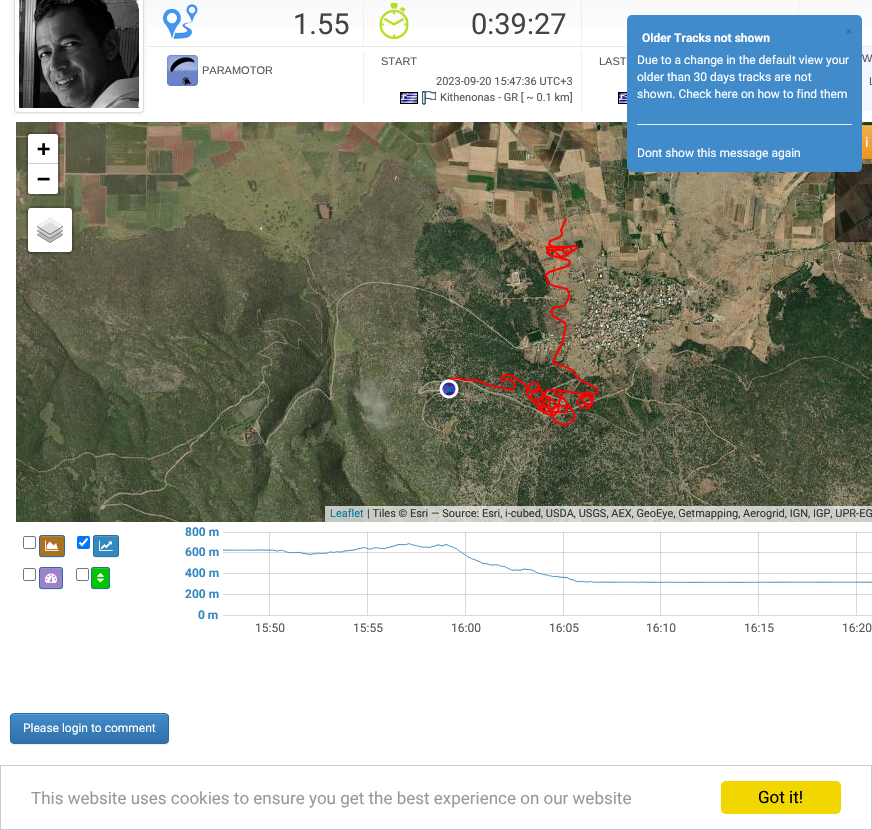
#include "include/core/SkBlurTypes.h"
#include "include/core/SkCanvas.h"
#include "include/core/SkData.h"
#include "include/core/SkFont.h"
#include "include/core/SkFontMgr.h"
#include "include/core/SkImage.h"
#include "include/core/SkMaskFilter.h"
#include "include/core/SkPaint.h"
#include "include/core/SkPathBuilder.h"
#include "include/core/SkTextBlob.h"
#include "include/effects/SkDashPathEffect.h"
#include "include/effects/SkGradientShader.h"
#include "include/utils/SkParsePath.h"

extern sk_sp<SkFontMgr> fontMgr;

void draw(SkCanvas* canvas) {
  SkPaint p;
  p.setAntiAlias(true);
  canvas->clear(SK_ColorWHITE);
  {
    const SkColor colors[] = {SkColorSetRGB(246, 246, 246), SK_ColorWHITE};
    const float stops[] = {0, 1};
    const SkPoint ends[] = {{79, -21}, {79, 117}};
    p.setShader(SkGradientShader::MakeLinear(ends, colors, stops, 2, SkTileMode::kClamp));
    p.setAlpha(255);
  }
  canvas->drawRect(SkRect::MakeLTRB(10, 0, 148, 79), p);
  p.setShader(nullptr);
  p.setColor(SkColorSetARGB(18, 0, 0, 0));
  p.setMaskFilter(SkMaskFilter::MakeBlur(kNormal_SkBlurStyle, 1));
  canvas->drawRoundRect(SkRect::MakeLTRB(14, -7, 144, 114), 4, 4, p);
  p.setMaskFilter(nullptr);
  p.setColor(SK_ColorWHITE);
  canvas->drawRoundRect(SkRect::MakeLTRB(14.5f, -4.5f, 143.5f, 112.5f), 3.5f, 3.5f, p);
  p.setStyle(SkPaint::kStroke_Style);
  p.setStrokeWidth(1);
  p.setColor(SkColorSetRGB(221, 221, 221));
  canvas->drawRoundRect(SkRect::MakeLTRB(14.5f, -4.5f, 143.5f, 112.5f), 3.5f, 3.5f, p);
  canvas->drawImageRect(SkImages::DeferredFromEncodedData(SkData::MakeFromFileName("images/1.png")), SkRect::MakeLTRB(19, 0, 139, 108), SkSamplingOptions());
  p.setStyle(SkPaint::kFill_Style);
  {
    const SkColor colors[] = {SkColorSetRGB(246, 246, 246), SK_ColorWHITE};
    const float stops[] = {0, 1};
    const SkPoint ends[] = {{589, -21}, {589, 46}};
    p.setShader(SkGradientShader::MakeLinear(ends, colors, stops, 2, SkTileMode::kClamp));
    p.setAlpha(255);
  }
  canvas->drawRect(SkRect::MakeLTRB(148, 0, 872, 27), p);
  p.setShader(nullptr);
  p.setColor(SkColorSetRGB(233, 233, 233));
  canvas->drawRect(SkRect::MakeLTRB(148, 46, 872, 47), p);
  p.setColor(SkColorSetRGB(239, 239, 239));
  canvas->drawRect(SkRect::MakeLTRB(798, 0, 799, 15), p);
  canvas->drawImageRect(SkImages::DeferredFromEncodedData(SkData::MakeFromFileName("images/2.png")), SkRect::MakeLTRB(162, 4, 198, 39), SkSamplingOptions());
  canvas->drawRect(SkRect::MakeLTRB(363, 0, 364, 46), p);
  canvas->drawImageRect(SkImages::DeferredFromEncodedData(SkData::MakeFromFileName("images/3.png")), SkRect::MakeLTRB(379, 3, 409, 39), SkSamplingOptions());
  canvas->drawRect(SkRect::MakeLTRB(581, 0, 582, 46), p);
  canvas->drawRect(SkRect::MakeLTRB(581, 51, 582, 111), p);
  canvas->drawImageRect(SkImages::DeferredFromEncodedData(SkData::MakeFromFileName("images/4.png")), SkRect::MakeLTRB(400, 92, 418, 104), SkSamplingOptions());
  canvas->drawImageRect(SkImages::DeferredFromEncodedData(SkData::MakeFromFileName("images/5.png")), SkRect::MakeLTRB(422, 91, 436, 105), SkSamplingOptions());
  canvas->drawImageRect(SkImages::DeferredFromEncodedData(SkData::MakeFromFileName("images/6.png")), SkRect::MakeLTRB(618, 92, 627, 104), SkSamplingOptions());
  p.setColor(SkColorSetRGB(244, 247, 255));
  canvas->drawRect(SkRect::MakeLTRB(862, 47, 872, 111), p);
  p.setColor(SkColorSetRGB(239, 239, 239));
  canvas->drawRect(SkRect::MakeLTRB(363, 51, 364, 106), p);
  canvas->drawImageRect(SkImages::DeferredFromEncodedData(SkData::MakeFromFileName("images/7.png")), SkRect::MakeLTRB(167, 55, 198, 86), SkSamplingOptions());
  canvas->drawImageRect(SkImages::DeferredFromEncodedData(SkData::MakeFromFileName("images/11.png")), SkRect::MakeLTRB(641, 122, 872, 185), SkSamplingOptions());
  p.setColor(SkColorSetARGB(18, 0, 0, 0));
  p.setMaskFilter(SkMaskFilter::MakeBlur(kNormal_SkBlurStyle, 0.5f));
  canvas->drawRoundRect(SkRect::MakeLTRB(844, 126, 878, 160), 4, 4, p);
  p.setMaskFilter(nullptr);
  {
    const SkColor colors[] = {SkColorSetRGB(240, 173, 78), SkColorSetRGB(236, 151, 31)};
    const float stops[] = {0, 1};
    const SkPoint ends[] = {{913, 126}, {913, 158}};
    p.setShader(SkGradientShader::MakeLinear(ends, colors, stops, 2, SkTileMode::kClamp));
    p.setAlpha(255);
  }
  canvas->drawRect(SkRect::MakeLTRB(862, 127, 872, 158), p);
  p.setShader(nullptr);
  p.setColor(SkColorSetRGB(242, 185, 104));
  canvas->drawPath(SkPathBuilder().moveTo(848, 127).lineTo(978, 127).cubicTo(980, 127, 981, 128, 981, 130).cubicTo(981, 128, 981, 126, 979, 126).lineTo(847, 126).cubicTo(845, 126, 845, 128, 845, 130).cubicTo(845, 128, 846, 127, 848, 127).close().detach(), p);
  p.setStyle(SkPaint::kStroke_Style);
  p.setColor(SkColorSetRGB(235, 147, 22));
  canvas->drawRect(SkRect::MakeLTRB(844.5f, 125.5f, 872.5f, 158.5f), p);
  canvas->drawImageRect(SkImages::DeferredFromEncodedData(SkData::MakeFromFileName("images/8.png")), SkRect::MakeLTRB(16, 122, 129, 185), SkSamplingOptions());
  canvas->drawImageRect(SkImages::DeferredFromEncodedData(SkData::MakeFromFileName("images/9.png")), SkRect::MakeLTRB(129, 122, 385, 185), SkSamplingOptions());
  canvas->drawImageRect(SkImages::DeferredFromEncodedData(SkData::MakeFromFileName("images/10.png")), SkRect::MakeLTRB(385, 122, 641, 185), SkSamplingOptions());
  canvas->drawImageRect(SkImages::DeferredFromEncodedData(SkData::MakeFromFileName("images/12.png")), SkRect::MakeLTRB(16, 185, 129, 441), SkSamplingOptions());
  canvas->drawImageRect(SkImages::DeferredFromEncodedData(SkData::MakeFromFileName("images/13.png")), SkRect::MakeLTRB(129, 185, 385, 441), SkSamplingOptions());
  canvas->drawImageRect(SkImages::DeferredFromEncodedData(SkData::MakeFromFileName("images/14.png")), SkRect::MakeLTRB(385, 185, 641, 441), SkSamplingOptions());
  canvas->drawImageRect(SkImages::DeferredFromEncodedData(SkData::MakeFromFileName("images/15.png")), SkRect::MakeLTRB(641, 185, 872, 441), SkSamplingOptions());
  canvas->drawImageRect(SkImages::DeferredFromEncodedData(SkData::MakeFromFileName("images/16.png")), SkRect::MakeLTRB(16, 441, 129, 522), SkSamplingOptions());
  canvas->drawImageRect(SkImages::DeferredFromEncodedData(SkData::MakeFromFileName("images/17.png")), SkRect::MakeLTRB(129, 441, 385, 522), SkSamplingOptions());
  canvas->drawImageRect(SkImages::DeferredFromEncodedData(SkData::MakeFromFileName("images/18.png")), SkRect::MakeLTRB(385, 441, 641, 522), SkSamplingOptions());
  canvas->drawImageRect(SkImages::DeferredFromEncodedData(SkData::MakeFromFileName("images/19.png")), SkRect::MakeLTRB(641, 441, 872, 522), SkSamplingOptions());
  canvas->drawImageRect(SkImages::DeferredFromEncodedData(SkData::MakeFromFileName("images/20.png")), SkRect::MakeLTRB(439, 218, 599, 426), SkSamplingOptions());
  p.setStrokeWidth(2);
  p.setColor(SkColorSetARGB(51, 0, 0, 0));
  canvas->drawRoundRect(SkRect::MakeLTRB(27, 133, 59, 195), 3, 3, p);
  p.setStyle(SkPaint::kFill_Style);
  p.setColor(SK_ColorWHITE);
  canvas->drawPath(SkPathBuilder().moveTo(30, 134).lineTo(56, 134).cubicTo(57, 134, 58, 135, 58, 136).lineTo(58, 164).lineTo(28, 164).lineTo(28, 136).cubicTo(28, 135, 29, 134, 30, 134).close().detach(), p);
  p.setColor(SkColorSetRGB(204, 204, 204));
  canvas->drawRect(SkRect::MakeLTRB(28, 163, 58, 164), p);
  p.setColor(SK_ColorWHITE);
  canvas->drawPath(SkPathBuilder().moveTo(28, 164).lineTo(58, 164).lineTo(58, 192).cubicTo(58, 193, 57, 194, 56, 194).lineTo(30, 194).cubicTo(29, 194, 28, 193, 28, 192).close().detach(), p);
  canvas->drawRoundRect(SkRect::MakeLTRB(28, 208, 72, 252), 3, 3, p);
  p.setStyle(SkPaint::kStroke_Style);
  p.setColor(SkColorSetARGB(51, 0, 0, 0));
  canvas->drawRoundRect(SkRect::MakeLTRB(27, 207, 73, 253), 4, 4, p);
  canvas->drawImageRect(SkImages::DeferredFromEncodedData(SkData::MakeFromFileName("images/21.png")), SkRect::MakeLTRB(37, 218, 63, 243), SkSamplingOptions());
  p.setStyle(SkPaint::kFill_Style);
  p.setColor(SkColorSetARGB(179, 255, 255, 255));
  canvas->drawRect(SkRect::MakeLTRB(325, 506, 872, 522), p);
  p.setColor(SkColorSetARGB(153, 0, 0, 0));
  canvas->drawPath(SkPathBuilder().moveTo(839, 164).lineTo(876, 164).lineTo(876, 242).lineTo(839, 242).cubicTo(837, 242, 835, 240, 835, 238).lineTo(835, 168).cubicTo(835, 166, 837, 164, 839, 164).close().detach(), p);
  p.setStyle(SkPaint::kStroke_Style);
  p.setStrokeWidth(1);
  p.setColor(SkColorSetRGB(118, 118, 118));
  canvas->drawRoundRect(SkRect::MakeLTRB(23.5f, 536.5f, 35.5f, 548.5f), 1.5f, 1.5f, p);
  p.setStyle(SkPaint::kFill_Style);
  p.setColor(SkColorSetARGB(18, 0, 0, 0));
  p.setMaskFilter(SkMaskFilter::MakeBlur(kNormal_SkBlurStyle, 0.5f));
  canvas->drawRoundRect(SkRect::MakeLTRB(39, 536, 65, 558), 3, 3, p);
  p.setMaskFilter(nullptr);
  p.setColor(SkColorSetRGB(171, 114, 36));
  canvas->drawRoundRect(SkRect::MakeLTRB(39, 535, 65, 557), 3, 3, p);
  p.setColor(SkColorSetRGB(184, 135, 69));
  canvas->drawPath(SkPathBuilder().moveTo(42, 537).lineTo(59, 537).cubicTo(62, 537, 63.5f, 537.5f, 64, 538.5f).cubicTo(64, 535.5f, 61.5f, 536, 58.5f, 536).lineTo(45.5f, 536).cubicTo(42.5f, 536, 40, 535.5f, 40, 538.5f).cubicTo(40.5f, 537.5f, 41, 537, 42, 537).close().detach(), p);
  p.setStyle(SkPaint::kStroke_Style);
  p.setColor(SkColorSetRGB(45, 108, 162));
  canvas->drawRoundRect(SkRect::MakeLTRB(39.5f, 535.5f, 64.5f, 556.5f), 2.5f, 2.5f, p);
  canvas->drawImageRect(SkImages::DeferredFromEncodedData(SkData::MakeFromFileName("images/22.png")), SkRect::MakeLTRB(45, 540, 59, 551), SkSamplingOptions());
  p.setStyle(SkPaint::kFill_Style);
  p.setColor(SkColorSetRGB(0, 117, 255));
  canvas->drawRoundRect(SkRect::MakeLTRB(77, 536, 90, 549), 2, 2, p);
  p.setStyle(SkPaint::kStroke_Style);
  p.setStrokeWidth(2.1f);
  p.setColor(SK_ColorWHITE);
  canvas->drawPath(SkPathBuilder().moveTo(79.5f, 542.5f).lineTo(82, 545).lineTo(87.5f, 538.5f).detach(), p);
  p.setStyle(SkPaint::kFill_Style);
  p.setColor(SkColorSetARGB(18, 0, 0, 0));
  p.setMaskFilter(SkMaskFilter::MakeBlur(kNormal_SkBlurStyle, 0.5f));
  canvas->drawRoundRect(SkRect::MakeLTRB(93, 536, 119, 558), 3, 3, p);
  p.setMaskFilter(nullptr);
  p.setColor(SkColorSetRGB(51, 136, 190));
  canvas->drawRoundRect(SkRect::MakeLTRB(93, 535, 119, 557), 3, 3, p);
  p.setColor(SkColorSetRGB(82, 154, 200));
  canvas->drawPath(SkPathBuilder().moveTo(96, 537).lineTo(113, 537).cubicTo(116, 537, 117.5f, 537.5f, 118, 538.5f).cubicTo(118, 535.5f, 115.5f, 536, 112.5f, 536).lineTo(99.5f, 536).cubicTo(96.5f, 536, 94, 535.5f, 94, 538.5f).cubicTo(94.5f, 537.5f, 95, 537, 96, 537).close().detach(), p);
  p.setStyle(SkPaint::kStroke_Style);
  p.setStrokeWidth(1);
  p.setColor(SkColorSetRGB(45, 108, 162));
  canvas->drawRoundRect(SkRect::MakeLTRB(93.5f, 535.5f, 118.5f, 556.5f), 2.5f, 2.5f, p);
  canvas->drawImageRect(SkImages::DeferredFromEncodedData(SkData::MakeFromFileName("images/23.png")), SkRect::MakeLTRB(99, 540, 113, 551), SkSamplingOptions());
  p.setColor(SkColorSetRGB(118, 118, 118));
  canvas->drawRoundRect(SkRect::MakeLTRB(23.5f, 568.5f, 35.5f, 580.5f), 1.5f, 1.5f, p);
  p.setStyle(SkPaint::kFill_Style);
  p.setColor(SkColorSetARGB(18, 0, 0, 0));
  p.setMaskFilter(SkMaskFilter::MakeBlur(kNormal_SkBlurStyle, 0.5f));
  canvas->drawRoundRect(SkRect::MakeLTRB(39, 568, 63, 590), 3, 3, p);
  p.setMaskFilter(nullptr);
  p.setColor(SkColorSetRGB(155, 130, 202));
  canvas->drawRoundRect(SkRect::MakeLTRB(39, 567, 63, 589), 3, 3, p);
  p.setColor(SkColorSetRGB(170, 149, 210));
  canvas->drawPath(SkPathBuilder(SkPathFillType::kEvenOdd).moveTo(42, 569).cubicTo(46.5f, 569, 59.5f, 567.5f, 62, 570).cubicTo(62, 569, 61, 568, 60, 568).lineTo(42, 568).cubicTo(41, 568, 40, 569, 40, 570).lineTo(40, 570.5f).cubicTo(40.5f, 569.5f, 41, 569, 42, 569).close().moveTo(62, 585).lineTo(62, 587).close().moveTo(40, 586.5f).lineTo(40, 582).close().detach(), p);
  p.setStyle(SkPaint::kStroke_Style);
  p.setColor(SkColorSetRGB(45, 108, 162));
  canvas->drawRoundRect(SkRect::MakeLTRB(39.5f, 567.5f, 62.5f, 588.5f), 2.5f, 2.5f, p);
  canvas->drawImageRect(SkImages::DeferredFromEncodedData(SkData::MakeFromFileName("images/24.png")), SkRect::MakeLTRB(45, 573, 57, 583), SkSamplingOptions());
  p.setColor(SkColorSetRGB(118, 118, 118));
  canvas->drawRoundRect(SkRect::MakeLTRB(76.5f, 568.5f, 88.5f, 580.5f), 1.5f, 1.5f, p);
  p.setStyle(SkPaint::kFill_Style);
  p.setColor(SkColorSetARGB(18, 0, 0, 0));
  p.setMaskFilter(SkMaskFilter::MakeBlur(kNormal_SkBlurStyle, 0.5f));
  canvas->drawRoundRect(SkRect::MakeLTRB(91, 568, 110, 590), 3, 3, p);
  p.setMaskFilter(nullptr);
  p.setColor(SkColorSetRGB(0, 197, 0));
  canvas->drawRoundRect(SkRect::MakeLTRB(91, 567, 110, 589), 3, 3, p);
  p.setColor(SkColorSetRGB(38, 206, 38));
  canvas->drawPath(SkPathBuilder().moveTo(94, 569).lineTo(107, 569).cubicTo(108, 569, 109, 570, 109, 571).cubicTo(109, 568, 107.5f, 568, 105, 568).lineTo(96, 568).cubicTo(93.5f, 568, 92, 568, 92, 571).cubicTo(92, 570, 93, 569, 94, 569).close().detach(), p);
  p.setStyle(SkPaint::kStroke_Style);
  p.setColor(SkColorSetRGB(45, 108, 162));
  canvas->drawRoundRect(SkRect::MakeLTRB(91.5f, 567.5f, 109.5f, 588.5f), 2.5f, 2.5f, p);
  canvas->drawImageRect(SkImages::DeferredFromEncodedData(SkData::MakeFromFileName("images/25.png")), SkRect::MakeLTRB(97, 573, 104, 583), SkSamplingOptions());
  canvas->drawImageRect(SkImages::DeferredFromEncodedData(SkData::MakeFromFileName("images/26.png")), SkRect::MakeLTRB(223, 532, 872, 616), SkSamplingOptions());
  p.setStyle(SkPaint::kFill_Style);
  p.setColor(SkColorSetARGB(18, 0, 0, 0));
  p.setMaskFilter(SkMaskFilter::MakeBlur(kNormal_SkBlurStyle, 0.5f));
  canvas->drawRoundRect(SkRect::MakeLTRB(10, 714, 169, 745), 4, 4, p);
  p.setMaskFilter(nullptr);
  canvas->save();
  canvas->clipPath(SkPathBuilder().moveTo(14, 713).lineTo(165, 713).cubicTo(167, 713, 169, 715, 169, 717).lineTo(169, 740).cubicTo(169, 742, 167, 744, 165, 744).lineTo(14, 744).cubicTo(12, 744, 10, 742, 10, 740).lineTo(10, 717).cubicTo(10, 715, 12, 713, 14, 713).close().detach(), true);
  {
    const SkColor colors[] = {SkColorSetRGB(66, 139, 202), SkColorSetRGB(48, 113, 169)};
    const float stops[] = {0, 1};
    const SkPoint ends[] = {{90, 714}, {90, 743}};
    p.setShader(SkGradientShader::MakeLinear(ends, colors, stops, 2, SkTileMode::kClamp));
    p.setAlpha(255);
  }
  canvas->drawRect(SkRect::MakeLTRB(10, 714, 169, 743), p);
  canvas->restore();
  p.setShader(nullptr);
  p.setColor(SkColorSetRGB(94, 156, 209));
  canvas->drawPath(SkPathBuilder().moveTo(14, 715).lineTo(165, 715).cubicTo(167, 715, 168, 716, 168, 718).cubicTo(168, 716, 167, 714, 165, 714).lineTo(13, 714).cubicTo(11, 714, 11, 716, 11, 718).cubicTo(11, 716, 12, 715, 14, 715).close().detach(), p);
  p.setStyle(SkPaint::kStroke_Style);
  p.setColor(SkColorSetRGB(45, 108, 162));
  canvas->drawRoundRect(SkRect::MakeLTRB(10.5f, 713.5f, 168.5f, 743.5f), 3.5f, 3.5f, p);
  p.setStyle(SkPaint::kFill_Style);
  p.setColor(SkColorSetRGB(66, 139, 202));
  canvas->drawRoundRect(SkRect::MakeLTRB(627, 15, 862, 172), 5, 5, p);
  p.setColor(SkColorSetRGB(238, 238, 238));
  canvas->drawRect(SkRect::MakeLTRB(637, 124, 852, 125), p);
  p.setStyle(SkPaint::kStroke_Style);
  p.setColor(SkColorSetRGB(204, 204, 204));
  canvas->drawRect(SkRect::MakeLTRB(0.5f, 765.5f, 871.5f, 829.5f), p);
  p.setStyle(SkPaint::kFill_Style);
  p.setColor(SkColorSetRGB(241, 214, 0));
  canvas->drawRoundRect(SkRect::MakeLTRB(721, 781, 841, 814), 5, 5, p);
  SkFont font1(fontMgr->matchFamilyStyle("Roboto", SkFontStyle::Normal()), 29);
  font1.setSubpixel(true);
  p.setColor(SkColorSetRGB(68, 68, 68));
  canvas->drawString("1.55", 293, 34, font1, p);
  canvas->drawString("0:39:27", 471, 34, font1, p);
  SkFont font2(fontMgr->matchFamilyStyle("Liberation Sans", SkFontStyle::Normal()), 11);
  font2.setSubpixel(true);
  p.setColor(SkColorSetRGB(85, 85, 85));
  canvas->drawString("START", 381, 65, font2, p);
  SkFont font3(fontMgr->matchFamilyStyle("Roboto", SkFontStyle::Normal()), 11);
  font3.setSubpixel(true);
  canvas->drawString("2023-09-20 15:47:36 UTC+3", 436, 85, font3, p);
  canvas->drawString("Kithenonas - GR [ ~ 0.1 km]", 440, 101, font3, p);
  canvas->drawString("LAST", 599, 65, font2, p);
  canvas->drawString("W", 862, 62, font2, p);
  canvas->drawString("L", 869, 85, font3, p);
  canvas->drawString("PARAMOTOR", 202, 74, font2, p);
  SkFont font4(fontMgr->matchFamilyStyle("Roboto", SkFontStyle::Normal()), 14);
  font4.setSubpixel(true);
  p.setColor(SK_ColorWHITE);
  canvas->drawString("i", 865, 147, font4, p);
  SkFont font5(fontMgr->matchFamilyStyle("DejaVu Sans Mono", SkFontStyle::Bold()), 22);
  font5.setSubpixel(true);
  p.setColor(SK_ColorBLACK);
  canvas->drawString("+", 37, 156, font5, p);
  canvas->drawString("−", 37, 186, font5, p);
  p.setColor(SkColorSetRGB(0, 120, 168));
  canvas->drawString("Leaflet", 330, 517, font3, p);
  p.setColor(SkColorSetRGB(51, 51, 51));
  canvas->drawString("| Tiles © Esri — Source: Esri, i-cubed, USDA, USGS, AEX, GeoEye, Getmapping, Aerogrid, IGN, IGP, UPR-EG", 367, 517, font3, p);
  SkFont font6(fontMgr->matchFamilyStyle("Roboto", SkFontStyle::Bold()), 12);
  font6.setSubpixel(true);
  p.setColor(SkColorSetRGB(51, 136, 190));
  canvas->drawString("800 m", 185, 536, font6, p);
  canvas->drawString("600 m", 185, 556, font6, p);
  canvas->drawString("400 m", 185, 577, font6, p);
  canvas->drawString("200 m", 185, 598, font6, p);
  canvas->drawString("0 m", 198, 619, font6, p);
  SkFont font7(fontMgr->matchFamilyStyle("Roboto", SkFontStyle::Normal()), 12);
  font7.setSubpixel(true);
  p.setColor(SkColorSetRGB(85, 85, 85));
  canvas->drawString("15:50", 255, 632, font7, p);
  canvas->drawString("15:55", 353, 632, font7, p);
  canvas->drawString("16:00", 451, 632, font7, p);
  canvas->drawString("16:05", 549, 632, font7, p);
  canvas->drawString("16:10", 646, 632, font7, p);
  canvas->drawString("16:15", 744, 632, font7, p);
  canvas->drawString("16:20", 842, 632, font7, p);
  p.setColor(SK_ColorWHITE);
  canvas->drawString("Please login to comment", 23, 732, font7, p);
  p.setColor(SkColorSetRGB(53, 111, 162));
  canvas->drawString("×", 846, 35, font6, p);
  p.setColor(SK_ColorWHITE);
  canvas->drawString("Older Tracks not shown", 642, 42, font6, p);
  canvas->drawString("Due to a change in the default view your", 637, 64, font7, p);
  canvas->drawString("older than 30 days tracks are not", 637, 81, font7, p);
  canvas->drawString("shown. Check here on how to find them", 637, 98, font7, p);
  canvas->drawString("Dont show this message again", 637, 157, font7, p);
  SkFont font8(fontMgr->matchFamilyStyle("Roboto", SkFontStyle::Normal()), 17);
  font8.setSubpixel(true);
  p.setColor(SkColorSetRGB(153, 153, 153));
  canvas->drawString("This website uses cookies to ensure you get the best experience on our website", 31, 804, font8, p);
  p.setColor(SK_ColorBLACK);
  canvas->drawString("Got it!", 758, 803, font8, p);
}
